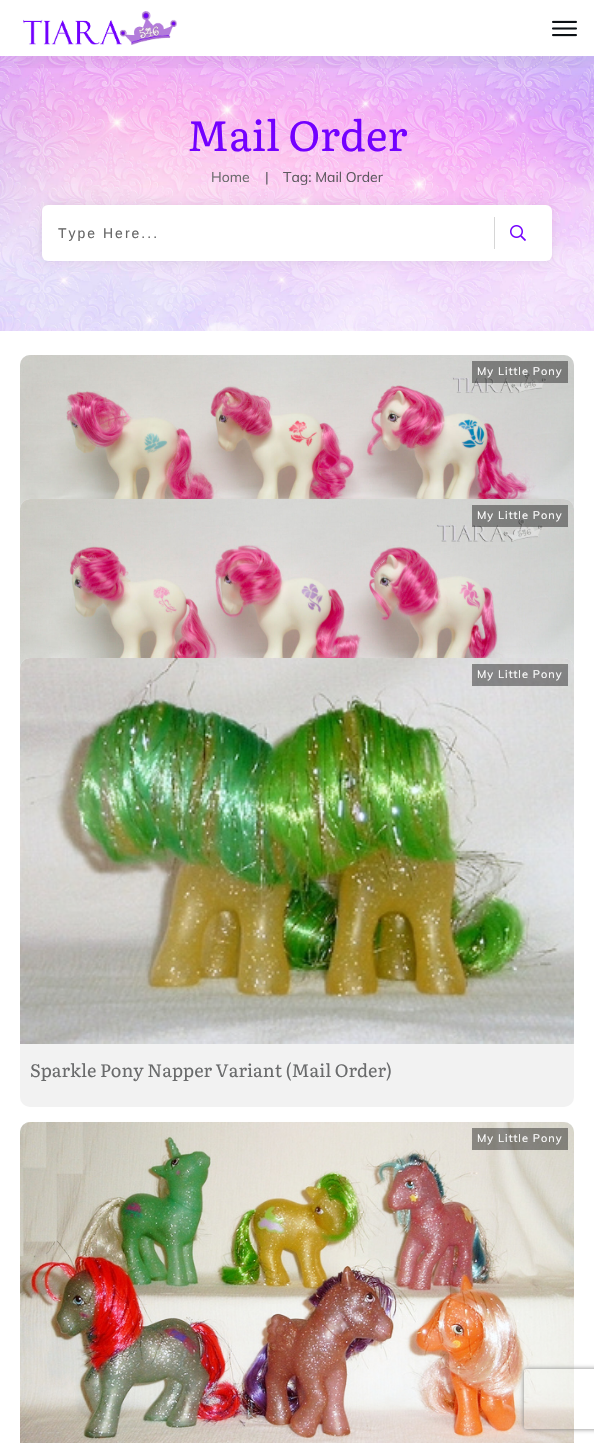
#include "include/core/SkBlurTypes.h"
#include "include/core/SkCanvas.h"
#include "include/core/SkData.h"
#include "include/core/SkFont.h"
#include "include/core/SkFontMgr.h"
#include "include/core/SkImage.h"
#include "include/core/SkMaskFilter.h"
#include "include/core/SkPaint.h"
#include "include/core/SkPathBuilder.h"
#include "include/core/SkTextBlob.h"
#include "include/effects/SkDashPathEffect.h"
#include "include/effects/SkGradientShader.h"
#include "include/utils/SkParsePath.h"

extern sk_sp<SkFontMgr> fontMgr;

void draw(SkCanvas* canvas) {
  SkPaint p;
  p.setAntiAlias(true);
  auto spacedText = [&](const char* s, float x, float y, const SkFont& font, const SkPaint& ink, float letter, float word) {
    std::vector<SkGlyphID> glyphs(font.countText(s, strlen(s), SkTextEncoding::kUTF8));
    std::vector<float> xs(glyphs.size());
    font.textToGlyphs(s, strlen(s), SkTextEncoding::kUTF8, glyphs);
    font.getXPos(glyphs, xs, x);
    float extra = 0;
    for (size_t i = 0; i < glyphs.size(); i++) {
      xs[i] += extra;
      extra += letter + word * (glyphs[i] == font.unicharToGlyph(' '));
    }
    canvas->drawTextBlob(SkTextBlob::MakeFromPosHGlyphs(glyphs, xs, y, font), 0, 0, ink);
  };
  canvas->clear(SK_ColorWHITE);
  canvas->drawImageRect(SkImages::DeferredFromEncodedData(SkData::MakeFromFileName("images/3.png")), SkRect::MakeLTRB(0, 56, 594, 331), SkSamplingOptions());
  canvas->save();
  canvas->clipRect(SkRect::MakeLTRB(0, 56, 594, 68));
  p.setColor(SkColorSetARGB(20, 0, 0, 0));
  p.setMaskFilter(SkMaskFilter::MakeBlur(kNormal_SkBlurStyle, 15));
  canvas->drawRect(SkRect::MakeLTRB(0, 2, 594, 58), p);
  p.setMaskFilter(nullptr);
  canvas->restore();
  canvas->drawImageRect(SkImages::DeferredFromEncodedData(SkData::MakeFromFileName("images/1.png")), SkRect::MakeLTRB(23, 11, 177, 45), SkSamplingOptions());
  canvas->drawImageRect(SkImages::DeferredFromEncodedData(SkData::MakeFromFileName("images/2.png")), SkRect::MakeLTRB(552, 20, 577, 37), SkSamplingOptions());
  p.setMaskFilter(SkMaskFilter::MakeBlur(kNormal_SkBlurStyle, 5.5f));
  canvas->drawRoundRect(SkRect::MakeLTRB(42, 205, 552, 261), 6, 6, p);
  p.setMaskFilter(nullptr);
  p.setColor(SK_ColorWHITE);
  canvas->drawRoundRect(SkRect::MakeLTRB(42, 205, 552, 261), 6, 6, p);
  p.setColor(SkColorSetRGB(214, 214, 214));
  canvas->drawRect(SkRect::MakeLTRB(494, 217, 495, 249), p);
  canvas->drawImageRect(SkImages::DeferredFromEncodedData(SkData::MakeFromFileName("images/4.png")), SkRect::MakeLTRB(510, 225, 526, 241), SkSamplingOptions());
  p.setColor(SkColorSetRGB(242, 242, 242));
  canvas->drawRoundRect(SkRect::MakeLTRB(20, 355, 574, 749), 10, 10, p);
  canvas->drawImageRect(SkImages::DeferredFromEncodedData(SkData::MakeFromFileName("images/5.png")), SkRect::MakeLTRB(20, 355, 574, 509), SkSamplingOptions());
  p.setColor(SkColorSetARGB(102, 0, 0, 0));
  canvas->drawRect(SkRect::MakeLTRB(472, 361, 568, 383), p);
  p.setColor(SkColorSetRGB(242, 242, 242));
  canvas->drawRoundRect(SkRect::MakeLTRB(20, 499, 574, 904), 10, 10, p);
  canvas->drawImageRect(SkImages::DeferredFromEncodedData(SkData::MakeFromFileName("images/6.png")), SkRect::MakeLTRB(20, 499, 574, 668), SkSamplingOptions());
  p.setColor(SkColorSetARGB(102, 0, 0, 0));
  canvas->drawRect(SkRect::MakeLTRB(472, 505, 568, 527), p);
  p.setColor(SkColorSetRGB(242, 242, 242));
  canvas->drawRoundRect(SkRect::MakeLTRB(20, 658, 574, 1107), 10, 10, p);
  canvas->drawImageRect(SkImages::DeferredFromEncodedData(SkData::MakeFromFileName("images/7.png")), SkRect::MakeLTRB(20, 658, 574, 1044), SkSamplingOptions());
  p.setColor(SkColorSetARGB(102, 0, 0, 0));
  canvas->drawRect(SkRect::MakeLTRB(472, 664, 568, 686), p);
  p.setColor(SkColorSetRGB(242, 242, 242));
  canvas->drawRoundRect(SkRect::MakeLTRB(20, 1122, 574, 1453), 10, 10, p);
  canvas->drawImageRect(SkImages::DeferredFromEncodedData(SkData::MakeFromFileName("images/8.png")), SkRect::MakeLTRB(20, 1122, 574, 1443), SkSamplingOptions());
  p.setColor(SkColorSetARGB(102, 0, 0, 0));
  canvas->drawRect(SkRect::MakeLTRB(472, 1128, 568, 1150), p);
  canvas->save();
  canvas->clipPath(SkPathBuilder(SkPathFillType::kEvenOdd).moveTo(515, 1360).lineTo(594, 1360).lineTo(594, 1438).lineTo(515, 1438).close().moveTo(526, 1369).lineTo(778, 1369).cubicTo(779, 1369, 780, 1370, 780, 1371).lineTo(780, 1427).cubicTo(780, 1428, 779, 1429, 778, 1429).lineTo(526, 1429).cubicTo(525, 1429, 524, 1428, 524, 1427).lineTo(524, 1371).cubicTo(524, 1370, 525, 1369, 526, 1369).close().detach(), true);
  p.setColor(SkColorSetRGB(128, 128, 128));
  p.setMaskFilter(SkMaskFilter::MakeBlur(kNormal_SkBlurStyle, 2.5f));
  canvas->drawRoundRect(SkRect::MakeLTRB(524, 1369, 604, 1429), 2, 2, p);
  p.setMaskFilter(nullptr);
  canvas->restore();
  SkFont font1(fontMgr->matchFamilyStyle("Literata", SkFontStyle::Normal()), 42);
  font1.setSubpixel(true);
  p.setColor(SkColorSetRGB(115, 0, 255));
  canvas->drawString("Mail Order", 187, 151, font1, p);
  SkFont font2(fontMgr->matchFamilyStyle("Muli", SkFontStyle::Normal()), 14);
  font2.setSubpixel(true);
  p.setColor(SkColorSetRGB(106, 107, 108));
  canvas->drawString("Home", 211, 182, font2, p);
  p.setColor(SkColorSetRGB(92, 89, 95));
  canvas->drawString("|", 265, 182, font2, p);
  canvas->drawString("Tag: Mail Order", 283, 182, font2, p);
  SkFont font3(fontMgr->matchFamilyStyle("Liberation Sans", SkFontStyle::Normal()), 14);
  font3.setSubpixel(true);
  p.setColor(SkColorSetRGB(102, 102, 102));
  spacedText("Type Here...", 58, 238, font3, p, 2, 0);
  SkFont font4(fontMgr->matchFamilyStyle("Muli", SkFontStyle::Normal()), 11);
  font4.setSubpixel(true);
  p.setColor(SK_ColorWHITE);
  spacedText("My Little Pony", 477, 375, font4, p, 1, 0);
  spacedText("My Little Pony", 477, 519, font4, p, 1, 0);
  spacedText("My Little Pony", 477, 678, font4, p, 1, 0);
  SkFont font5(fontMgr->matchFamilyStyle("Literata", SkFontStyle::Normal()), 18);
  font5.setSubpixel(true);
  p.setColor(SkColorSetRGB(106, 107, 108));
  canvas->drawString("Sparkle Pony Napper Variant (Mail Order)", 30, 1077, font5, p);
  p.setColor(SK_ColorWHITE);
  spacedText("My Little Pony", 477, 1142, font4, p, 1, 0);
}
